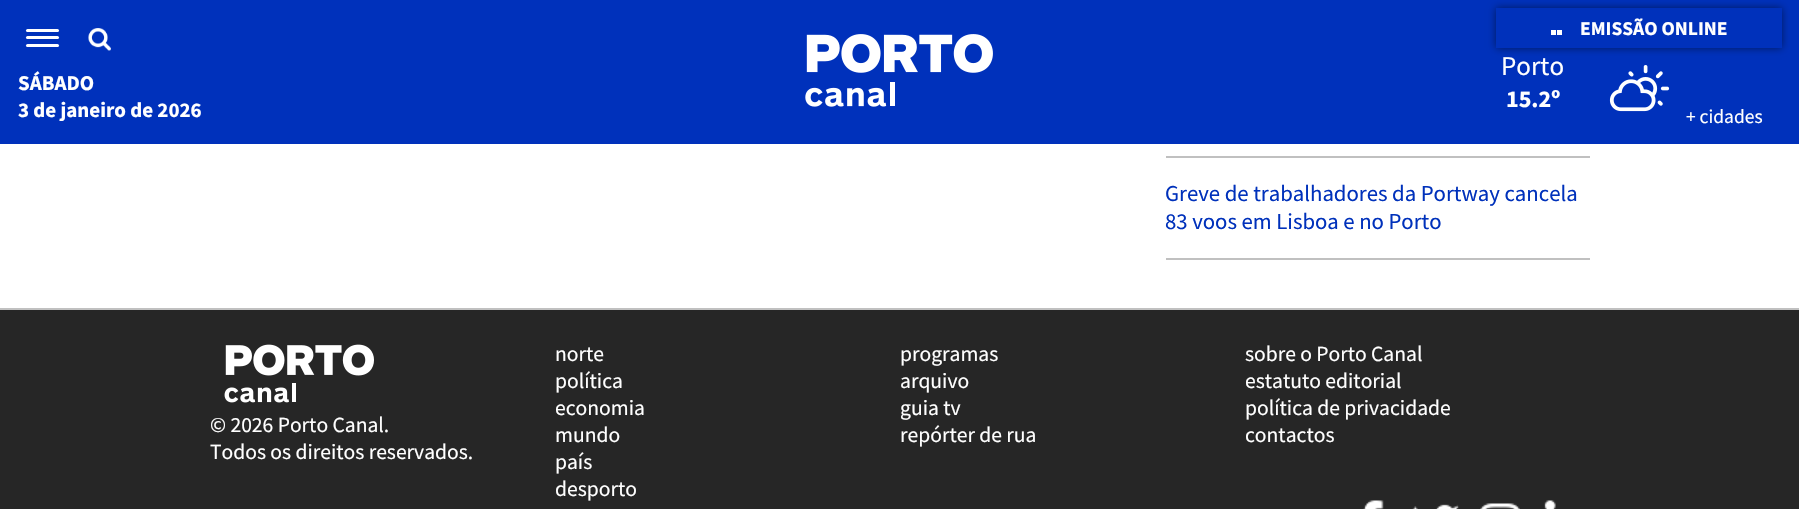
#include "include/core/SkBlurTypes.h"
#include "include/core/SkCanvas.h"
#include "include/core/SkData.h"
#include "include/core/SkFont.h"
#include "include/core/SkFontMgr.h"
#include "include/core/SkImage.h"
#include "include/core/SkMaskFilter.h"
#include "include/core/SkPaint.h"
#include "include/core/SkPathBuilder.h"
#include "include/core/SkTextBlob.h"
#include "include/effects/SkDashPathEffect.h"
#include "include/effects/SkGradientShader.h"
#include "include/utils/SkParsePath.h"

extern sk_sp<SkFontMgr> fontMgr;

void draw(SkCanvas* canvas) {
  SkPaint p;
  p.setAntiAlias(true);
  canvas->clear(SK_ColorWHITE);
  p.setColor(SkColorSetRGB(0, 49, 187));
  canvas->drawRect(SkRect::MakeLTRB(0, 0, 1799, 144), p);
  p.setColor(SK_ColorWHITE);
  canvas->drawRoundRect(SkRect::MakeLTRB(26, 29, 59, 32), 1.5f, 1.5f, p);
  canvas->drawRoundRect(SkRect::MakeLTRB(26, 36, 59, 39), 1.5f, 1.5f, p);
  canvas->drawRoundRect(SkRect::MakeLTRB(26, 44, 59, 47), 1.5f, 1.5f, p);
  canvas->drawImageRect(SkImages::DeferredFromEncodedData(SkData::MakeFromFileName("images/1.png")), SkRect::MakeLTRB(88, 28, 111, 51), SkSamplingOptions());
  canvas->drawImageRect(SkImages::DeferredFromEncodedData(SkData::MakeFromFileName("images/2.png")), SkRect::MakeLTRB(805, 34, 993, 107), SkSamplingOptions());
  canvas->save();
  canvas->clipPath(SkPathBuilder(SkPathFillType::kEvenOdd).moveTo(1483, 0).lineTo(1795, 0).lineTo(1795, 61).lineTo(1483, 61).close().moveTo(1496, 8).lineTo(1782, 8).lineTo(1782, 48).lineTo(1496, 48).close().detach(), true);
  p.setColor(SkColorSetARGB(128, 0, 0, 0));
  p.setMaskFilter(SkMaskFilter::MakeBlur(kNormal_SkBlurStyle, 4));
  canvas->drawRect(SkRect::MakeLTRB(1496, 8, 1782, 48), p);
  p.setMaskFilter(nullptr);
  canvas->restore();
  p.setColor(SK_ColorWHITE);
  canvas->drawRect(SkRect::MakeLTRB(1551, 30, 1556, 35), p);
  canvas->drawRect(SkRect::MakeLTRB(1557, 30, 1562, 35), p);
  canvas->drawImageRect(SkImages::DeferredFromEncodedData(SkData::MakeFromFileName("images/3.png")), SkRect::MakeLTRB(1609, 65, 1670, 112), SkSamplingOptions());
  p.setColor(SkColorSetRGB(192, 192, 192));
  canvas->drawRect(SkRect::MakeLTRB(1166, 156, 1590, 158), p);
  canvas->drawRect(SkRect::MakeLTRB(1166, 258, 1590, 260), p);
  p.setColor(SkColorSetRGB(38, 38, 38));
  canvas->drawRect(SkRect::MakeLTRB(0, 310, 1799, 509), p);
  p.setColor(SkColorSetRGB(192, 192, 192));
  canvas->drawRect(SkRect::MakeLTRB(0, 308, 1799, 310), p);
  canvas->drawImageRect(SkImages::DeferredFromEncodedData(SkData::MakeFromFileName("images/4.png")), SkRect::MakeLTRB(224, 344, 374, 403), SkSamplingOptions());
  canvas->drawImageRect(SkImages::DeferredFromEncodedData(SkData::MakeFromFileName("images/5.png")), SkRect::MakeLTRB(1363, 500, 1384, 509), SkSamplingOptions());
  canvas->drawImageRect(SkImages::DeferredFromEncodedData(SkData::MakeFromFileName("images/6.png")), SkRect::MakeLTRB(1412, 504, 1459, 509), SkSamplingOptions());
  canvas->drawImageRect(SkImages::DeferredFromEncodedData(SkData::MakeFromFileName("images/7.png")), SkRect::MakeLTRB(1480, 503, 1520, 509), SkSamplingOptions());
  canvas->drawImageRect(SkImages::DeferredFromEncodedData(SkData::MakeFromFileName("images/8.png")), SkRect::MakeLTRB(1544, 500, 1556, 509), SkSamplingOptions());
  SkFont font1(fontMgr->matchFamilyStyle("Source Sans Pro", SkFontStyle::Bold()), 21);
  font1.setSubpixel(true);
  p.setColor(SK_ColorWHITE);
  canvas->drawString("SÁBADO", 18, 90, font1, p);
  canvas->drawString("3 de janeiro de 2026", 18, 117, font1, p);
  SkFont font2(fontMgr->matchFamilyStyle("Source Sans Pro", SkFontStyle::Bold()), 19.5f);
  font2.setSubpixel(true);
  canvas->drawString("EMISSÃO ONLINE", 1580, 35, font2, p);
  SkFont font3(fontMgr->matchFamilyStyle("Source Sans Pro", SkFontStyle::Normal()), 27);
  font3.setSubpixel(true);
  canvas->drawString("Porto", 1501, 75, font3, p);
  SkFont font4(fontMgr->matchFamilyStyle("Source Sans Pro", SkFontStyle::Bold()), 24);
  font4.setSubpixel(true);
  canvas->drawString("15.2º", 1506, 107, font4, p);
  SkFont font5(fontMgr->matchFamilyStyle("Source Sans Pro", SkFontStyle::Normal()), 19.5f);
  font5.setSubpixel(true);
  canvas->drawString("+ cidades", 1686, 123, font5, p);
  SkFont font6(fontMgr->matchFamilyStyle("Source Sans Pro", SkFontStyle::Normal()), 22.75f);
  font6.setSubpixel(true);
  p.setColor(SkColorSetRGB(0, 49, 187));
  canvas->drawString("Greve de trabalhadores da Portway cancela", 1165, 201, font6, p);
  canvas->drawString("83 voos em Lisboa e no Porto", 1165, 229, font6, p);
  SkFont font7(fontMgr->matchFamilyStyle("Source Sans Pro", SkFontStyle::Normal()), 21.6f);
  font7.setSubpixel(true);
  p.setColor(SK_ColorWHITE);
  canvas->drawString("© 2026 Porto Canal.", 210, 432, font7, p);
  canvas->drawString("Todos os direitos reservados.", 210, 459, font7, p);
  canvas->drawString("norte", 555, 361, font7, p);
  canvas->drawString("política", 555, 388, font7, p);
  canvas->drawString("economia", 555, 415, font7, p);
  canvas->drawString("mundo", 555, 442, font7, p);
  canvas->drawString("país", 555, 469, font7, p);
  canvas->drawString("desporto", 555, 496, font7, p);
  canvas->drawString("programas", 900, 361, font7, p);
  canvas->drawString("arquivo", 900, 388, font7, p);
  canvas->drawString("guia tv", 900, 415, font7, p);
  canvas->drawString("repórter de rua", 900, 442, font7, p);
  canvas->drawString("sobre o Porto Canal", 1245, 361, font7, p);
  canvas->drawString("estatuto editorial", 1245, 388, font7, p);
  canvas->drawString("política de privacidade", 1245, 415, font7, p);
  canvas->drawString("contactos", 1245, 442, font7, p);
}
